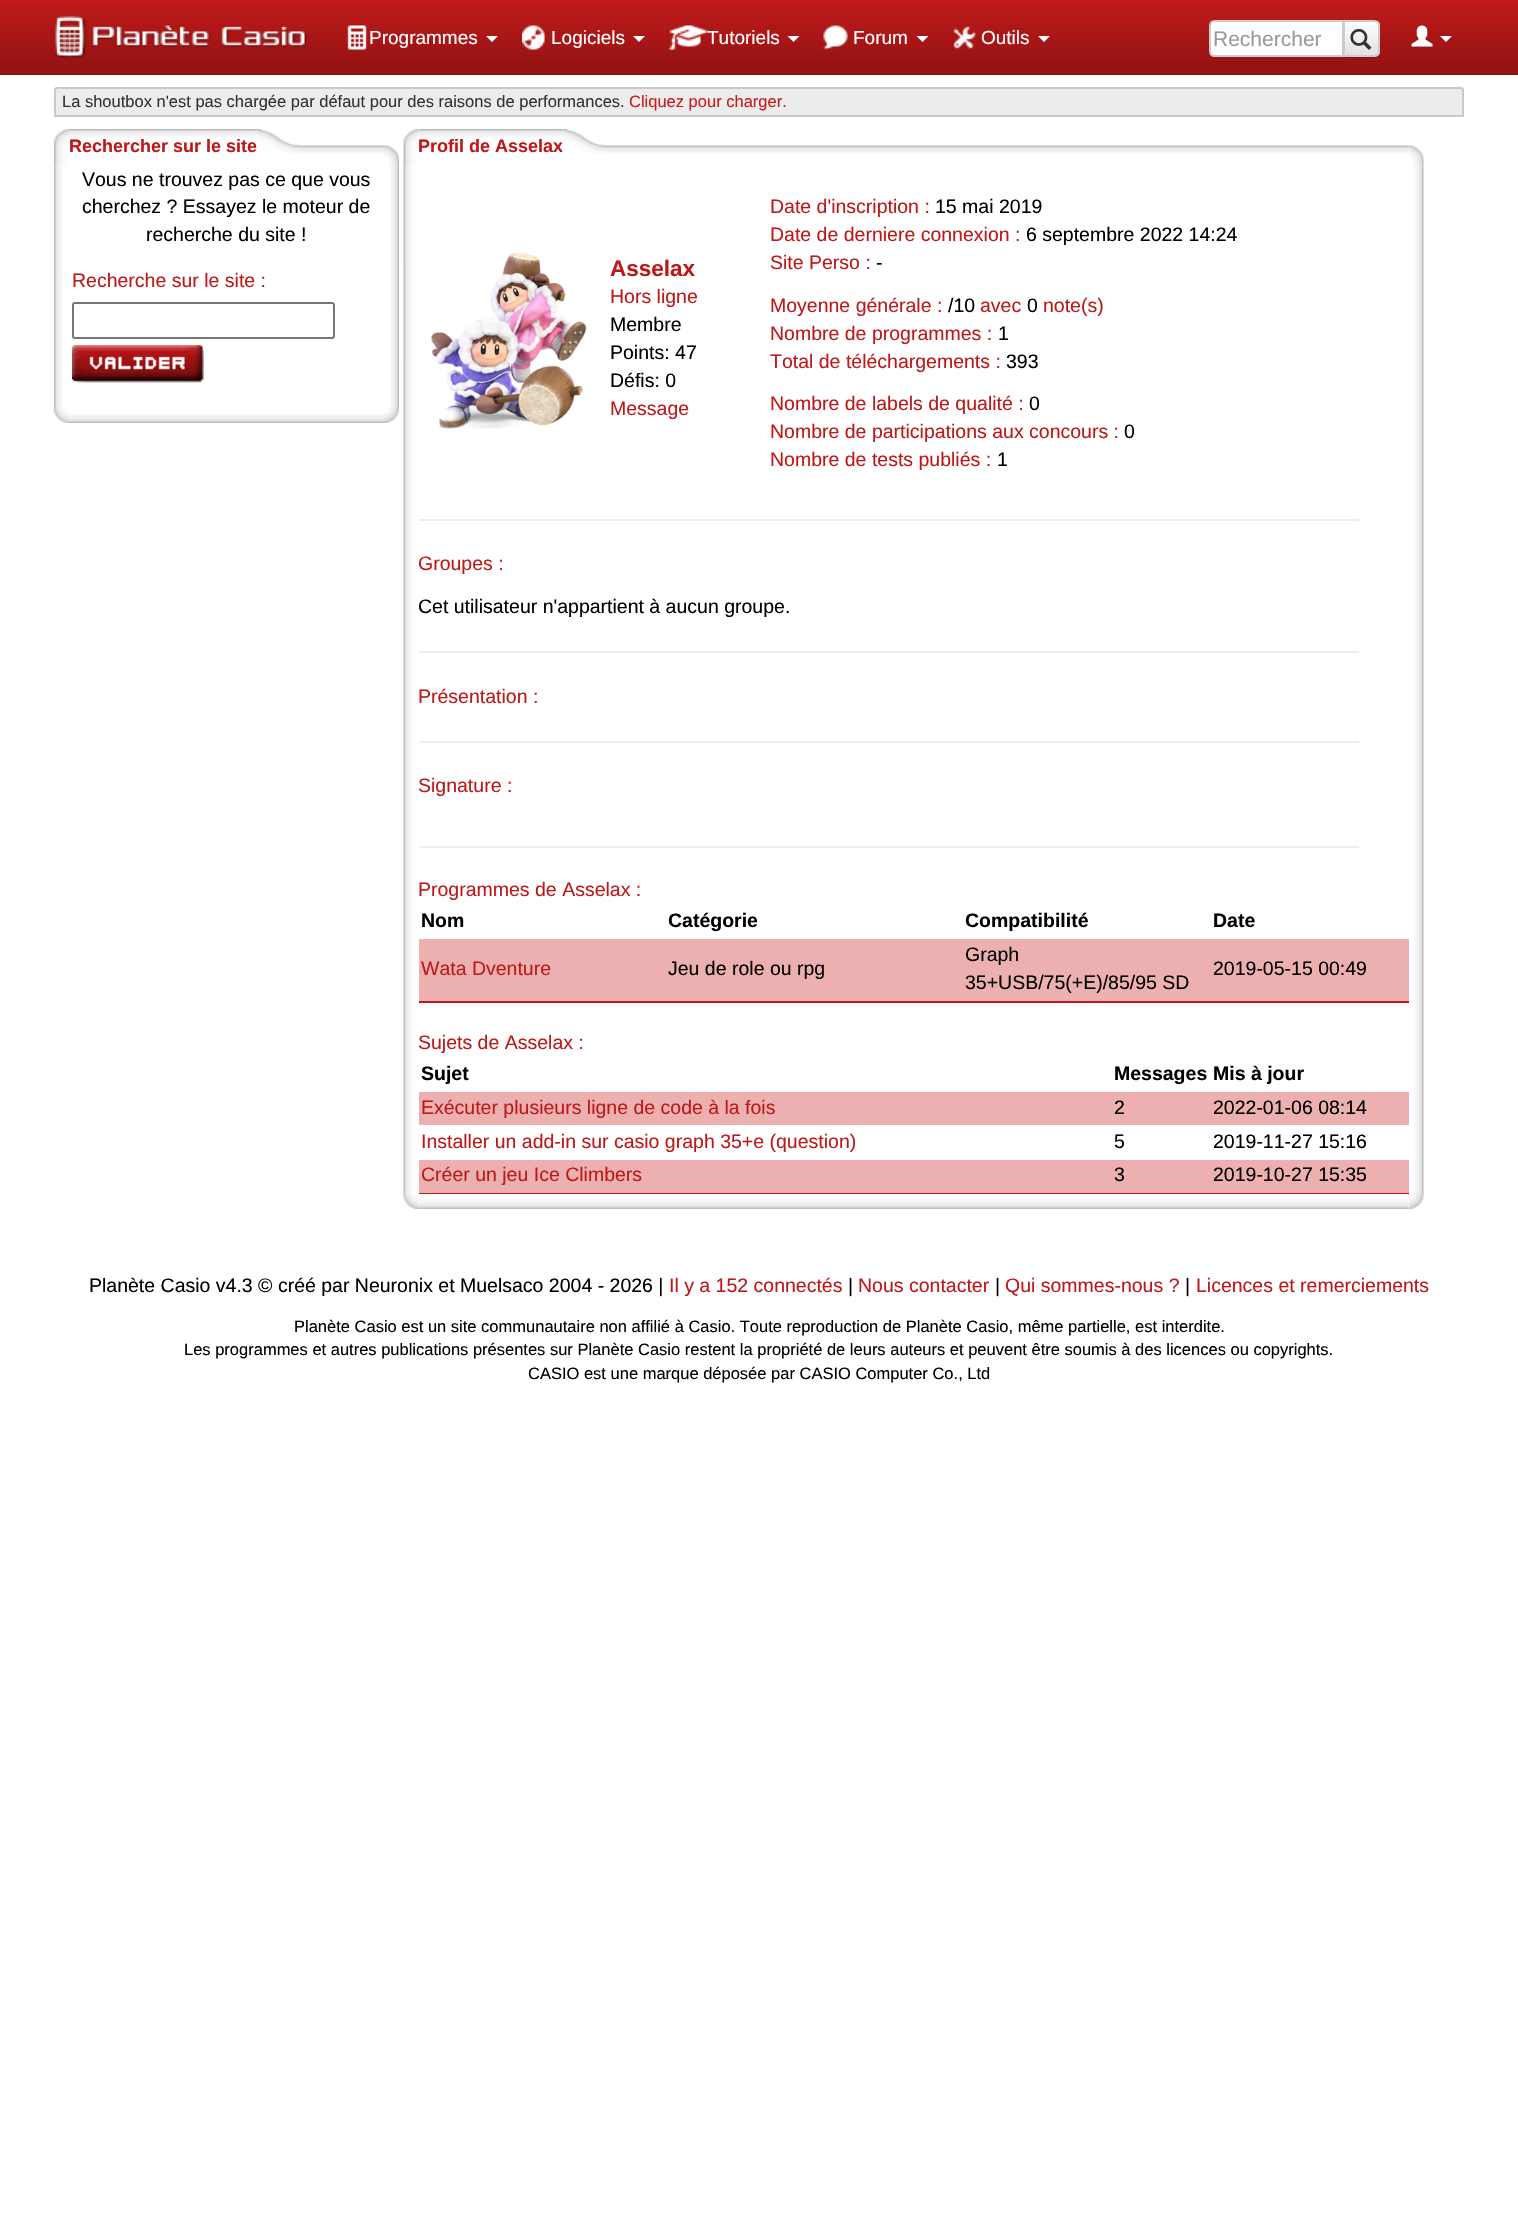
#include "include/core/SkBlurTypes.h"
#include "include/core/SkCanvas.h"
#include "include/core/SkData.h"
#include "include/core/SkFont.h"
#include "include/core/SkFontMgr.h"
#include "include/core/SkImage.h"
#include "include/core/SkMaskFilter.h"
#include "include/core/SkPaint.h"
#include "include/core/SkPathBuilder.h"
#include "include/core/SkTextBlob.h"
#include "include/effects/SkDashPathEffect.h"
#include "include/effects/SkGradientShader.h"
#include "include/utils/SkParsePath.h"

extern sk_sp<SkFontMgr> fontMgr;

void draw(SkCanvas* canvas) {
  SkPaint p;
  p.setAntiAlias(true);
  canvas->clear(SK_ColorWHITE);
  {
    const SkColor colors[] = {SkColorSetRGB(194, 26, 26), SkColorSetRGB(145, 18, 18)};
    const float stops[] = {0, 1};
    const SkPoint ends[] = {{759, 0}, {759, 75}};
    p.setShader(SkGradientShader::MakeLinear(ends, colors, stops, 2, SkTileMode::kClamp));
    p.setAlpha(255);
  }
  canvas->drawRect(SkRect::MakeLTRB(0, 0, 1518, 75), p);
  canvas->drawImageRect(SkImages::DeferredFromEncodedData(SkData::MakeFromFileName("images/1.png")), SkRect::MakeLTRB(55, 16, 308, 59), SkSamplingOptions());
  canvas->drawImageRect(SkImages::DeferredFromEncodedData(SkData::MakeFromFileName("images/2.png")), SkRect::MakeLTRB(346, 25, 367, 50), SkSamplingOptions());
  p.setShader(nullptr);
  p.setColor(SK_ColorWHITE);
  canvas->drawPath(SkPathBuilder().moveTo(486, 36).lineTo(498, 36).lineTo(492, 42).close().detach(), p);
  canvas->drawImageRect(SkImages::DeferredFromEncodedData(SkData::MakeFromFileName("images/3.png")), SkRect::MakeLTRB(522, 25, 545, 50), SkSamplingOptions());
  canvas->drawPath(SkPathBuilder().moveTo(633, 36).lineTo(645, 36).lineTo(639, 42).close().detach(), p);
  canvas->drawImageRect(SkImages::DeferredFromEncodedData(SkData::MakeFromFileName("images/4.png")), SkRect::MakeLTRB(669, 25, 708, 50), SkSamplingOptions());
  canvas->drawPath(SkPathBuilder().moveTo(787.5f, 36).lineTo(799.5f, 36).lineTo(793.5f, 42).close().detach(), p);
  canvas->drawImageRect(SkImages::DeferredFromEncodedData(SkData::MakeFromFileName("images/5.png")), SkRect::MakeLTRB(823, 25, 848, 50), SkSamplingOptions());
  canvas->drawPath(SkPathBuilder().moveTo(916.5f, 36).lineTo(928.5f, 36).lineTo(922.5f, 42).close().detach(), p);
  canvas->drawImageRect(SkImages::DeferredFromEncodedData(SkData::MakeFromFileName("images/6.png")), SkRect::MakeLTRB(953, 26, 976, 49), SkSamplingOptions());
  canvas->drawPath(SkPathBuilder().moveTo(1038, 36).lineTo(1050, 36).lineTo(1044, 42).close().detach(), p);
  canvas->drawPath(SkPathBuilder().moveTo(1215, 21).lineTo(1343, 21).lineTo(1343, 56).lineTo(1215, 56).cubicTo(1212, 56, 1210, 54, 1210, 51).lineTo(1210, 26).cubicTo(1210, 23, 1212, 21, 1215, 21).close().detach(), p);
  p.setStyle(SkPaint::kStroke_Style);
  p.setStrokeWidth(2);
  p.setColor(SkColorSetRGB(204, 204, 204));
  canvas->drawPath(SkPathBuilder().moveTo(1215, 21).lineTo(1343, 21).lineTo(1343, 56).lineTo(1215, 56).cubicTo(1212, 56, 1210, 54, 1210, 51).lineTo(1210, 26).cubicTo(1210, 23, 1212, 21, 1215, 21).close().detach(), p);
  p.setStyle(SkPaint::kFill_Style);
  p.setColor(SkColorSetARGB(18, 0, 0, 0));
  p.setMaskFilter(SkMaskFilter::MakeBlur(kNormal_SkBlurStyle, 1));
  canvas->drawRoundRect(SkRect::MakeLTRB(1343, 21, 1380, 59), 6, 6, p);
  p.setMaskFilter(nullptr);
  canvas->save();
  canvas->clipPath(SkPathBuilder().moveTo(1343, 20).lineTo(1374, 20).cubicTo(1377.5f, 20, 1380, 22.5f, 1380, 26).lineTo(1380, 51).cubicTo(1380, 54.5f, 1377.5f, 57, 1374, 57).lineTo(1343, 57).close().detach(), true);
  {
    const SkColor colors[] = {SK_ColorWHITE, SkColorSetRGB(224, 224, 224)};
    const float stops[] = {0, 1};
    const SkPoint ends[] = {{1361, 21}, {1361, 56}};
    p.setShader(SkGradientShader::MakeLinear(ends, colors, stops, 2, SkTileMode::kClamp));
    p.setAlpha(255);
  }
  canvas->drawRect(SkRect::MakeLTRB(1345, 21, 1380, 56), p);
  canvas->restore();
  p.setShader(nullptr);
  p.setColor(SkColorSetARGB(38, 255, 255, 255));
  canvas->drawPath(SkPathBuilder().moveTo(1344, 22).lineTo(1374, 22).cubicTo(1376, 22, 1378, 25, 1378, 27).lineTo(1378, 52).cubicTo(1378, 53, 1378, 54, 1377.5f, 54.5f).cubicTo(1378.5f, 54, 1379, 52.5f, 1379, 51).lineTo(1379, 26).cubicTo(1379, 23, 1377, 21, 1374, 21).lineTo(1344, 21).close().detach(), p);
  p.setStyle(SkPaint::kStroke_Style);
  p.setColor(SkColorSetRGB(204, 204, 204));
  canvas->drawPath(SkPathBuilder().moveTo(1344, 21).lineTo(1374, 21).cubicTo(1377, 21, 1379, 23, 1379, 26).lineTo(1379, 51).cubicTo(1379, 54, 1377, 56, 1374, 56).lineTo(1344, 56).close().detach(), p);
  canvas->drawImageRect(SkImages::DeferredFromEncodedData(SkData::MakeFromFileName("images/7.png")), SkRect::MakeLTRB(1350, 28, 1372, 50), SkSamplingOptions());
  canvas->drawImageRect(SkImages::DeferredFromEncodedData(SkData::MakeFromFileName("images/8.png")), SkRect::MakeLTRB(1411, 25, 1433, 47), SkSamplingOptions());
  p.setStyle(SkPaint::kFill_Style);
  p.setColor(SK_ColorWHITE);
  canvas->drawPath(SkPathBuilder().moveTo(1440, 36).lineTo(1452, 36).lineTo(1446, 42).close().detach(), p);
  p.setColor(SkColorSetRGB(236, 236, 236));
  canvas->drawPath(SkPathBuilder().moveTo(57, 87).lineTo(1461, 87).cubicTo(1462.5f, 87, 1464, 88.5f, 1464, 90).lineTo(1464, 117).lineTo(54, 117).lineTo(54, 90).cubicTo(54, 88.5f, 55.5f, 87, 57, 87).close().detach(), p);
  p.setStyle(SkPaint::kStroke_Style);
  p.setColor(SkColorSetARGB(38, 0, 0, 0));
  canvas->drawPath(SkPathBuilder().moveTo(57, 88).lineTo(1461, 88).cubicTo(1462, 88, 1463, 89, 1463, 90).lineTo(1463, 116).lineTo(55, 116).lineTo(55, 90).cubicTo(55, 89, 56, 88, 57, 88).close().detach(), p);
  canvas->drawImageRect(SkImages::DeferredFromEncodedData(SkData::MakeFromFileName("images/14.png")), SkRect::MakeLTRB(54, 166, 62, 408), SkSamplingOptions());
  canvas->drawImageRect(SkImages::DeferredFromEncodedData(SkData::MakeFromFileName("images/9.png")), SkRect::MakeLTRB(54, 129, 69, 167), SkSamplingOptions());
  canvas->drawImageRect(SkImages::DeferredFromEncodedData(SkData::MakeFromFileName("images/10.png")), SkRect::MakeLTRB(256, 145, 384, 154), SkSamplingOptions());
  canvas->drawImageRect(SkImages::DeferredFromEncodedData(SkData::MakeFromFileName("images/11.png")), SkRect::MakeLTRB(69, 129, 257, 154), SkSamplingOptions());
  canvas->drawImageRect(SkImages::DeferredFromEncodedData(SkData::MakeFromFileName("images/16.png")), SkRect::MakeLTRB(390, 166, 399, 408), SkSamplingOptions());
  canvas->drawImageRect(SkImages::DeferredFromEncodedData(SkData::MakeFromFileName("images/13.png")), SkRect::MakeLTRB(384, 145, 399, 167), SkSamplingOptions());
  p.setColor(SkColorSetRGB(118, 118, 118));
  canvas->drawRoundRect(SkRect::MakeLTRB(73, 303, 334, 338), 2, 2, p);
  canvas->drawImageRect(SkImages::DeferredFromEncodedData(SkData::MakeFromFileName("images/15.png")), SkRect::MakeLTRB(72, 345, 204, 383), SkSamplingOptions());
  canvas->drawImageRect(SkImages::DeferredFromEncodedData(SkData::MakeFromFileName("images/17.png")), SkRect::MakeLTRB(54, 408, 69, 423), SkSamplingOptions());
  canvas->drawImageRect(SkImages::DeferredFromEncodedData(SkData::MakeFromFileName("images/18.png")), SkRect::MakeLTRB(69, 414, 384, 423), SkSamplingOptions());
  canvas->drawImageRect(SkImages::DeferredFromEncodedData(SkData::MakeFromFileName("images/19.png")), SkRect::MakeLTRB(384, 408, 399, 423), SkSamplingOptions());
  canvas->drawImageRect(SkImages::DeferredFromEncodedData(SkData::MakeFromFileName("images/21.png")), SkRect::MakeLTRB(418, 145, 1409, 154), SkSamplingOptions());
  canvas->drawImageRect(SkImages::DeferredFromEncodedData(SkData::MakeFromFileName("images/22.png")), SkRect::MakeLTRB(418, 129, 563, 154), SkSamplingOptions());
  canvas->drawImageRect(SkImages::DeferredFromEncodedData(SkData::MakeFromFileName("images/25.png")), SkRect::MakeLTRB(403, 166, 412, 1194), SkSamplingOptions());
  canvas->drawImageRect(SkImages::DeferredFromEncodedData(SkData::MakeFromFileName("images/20.png")), SkRect::MakeLTRB(403, 129, 419, 167), SkSamplingOptions());
  canvas->drawImageRect(SkImages::DeferredFromEncodedData(SkData::MakeFromFileName("images/27.png")), SkRect::MakeLTRB(1414, 166, 1424, 1194), SkSamplingOptions());
  canvas->drawImageRect(SkImages::DeferredFromEncodedData(SkData::MakeFromFileName("images/24.png")), SkRect::MakeLTRB(1408, 145, 1424, 167), SkSamplingOptions());
  canvas->drawImageRect(SkImages::DeferredFromEncodedData(SkData::MakeFromFileName("images/26.png")), SkRect::MakeLTRB(431, 253, 587, 429), SkSamplingOptions());
  p.setStyle(SkPaint::kFill_Style);
  p.setColor(SkColorSetRGB(238, 238, 238));
  canvas->drawRect(SkRect::MakeLTRB(419, 519, 1359, 521), p);
  canvas->drawRect(SkRect::MakeLTRB(419, 651, 1359, 653), p);
  canvas->drawRect(SkRect::MakeLTRB(419, 741, 1359, 743), p);
  canvas->drawRect(SkRect::MakeLTRB(419, 846, 1359, 848), p);
  p.setColor(SkColorSetRGB(190, 24, 24));
  canvas->drawRect(SkRect::MakeLTRB(419, 1001, 1409, 1003), p);
  p.setColor(SkColorSetRGB(236, 176, 176));
  canvas->drawRect(SkRect::MakeLTRB(419, 939, 1409, 1001), p);
  p.setColor(SkColorSetRGB(190, 24, 24));
  canvas->drawRect(SkRect::MakeLTRB(419, 1193, 1409, 1195), p);
  p.setColor(SkColorSetRGB(236, 176, 176));
  canvas->drawRect(SkRect::MakeLTRB(419, 1092, 1409, 1125), p);
  canvas->drawRect(SkRect::MakeLTRB(419, 1160, 1409, 1193), p);
  canvas->drawImageRect(SkImages::DeferredFromEncodedData(SkData::MakeFromFileName("images/29.png")), SkRect::MakeLTRB(418, 1194, 1409, 1209), SkSamplingOptions());
  canvas->drawImageRect(SkImages::DeferredFromEncodedData(SkData::MakeFromFileName("images/28.png")), SkRect::MakeLTRB(403, 1194, 419, 1209), SkSamplingOptions());
  canvas->drawImageRect(SkImages::DeferredFromEncodedData(SkData::MakeFromFileName("images/30.png")), SkRect::MakeLTRB(1408, 1194, 1424, 1209), SkSamplingOptions());
  SkFont font1(fontMgr->matchFamilyStyle("Liberation Sans", SkFontStyle::Normal()), 19);
  font1.setSubpixel(true);
  p.setColor(SK_ColorWHITE);
  canvas->drawString("Programmes", 369, 44, font1, p);
  canvas->drawString("Logiciels", 551, 44, font1, p);
  canvas->drawString("Tutoriels", 707, 44, font1, p);
  canvas->drawString("Forum", 853, 44, font1, p);
  canvas->drawString("Outils", 981, 44, font1, p);
  SkFont font2(fontMgr->matchFamilyStyle("Liberation Sans", SkFontStyle::Normal()), 21);
  font2.setSubpixel(true);
  p.setColor(SkColorSetRGB(153, 153, 153));
  canvas->drawString("Rechercher", 1213, 46, font2, p);
  SkFont font3(fontMgr->matchFamilyStyle("Liberation Sans", SkFontStyle::Normal()), 16.5f);
  font3.setSubpixel(true);
  p.setColor(SkColorSetRGB(51, 51, 51));
  canvas->drawString("La shoutbox n'est pas chargée par défaut pour des raisons de performances.", 62, 107, font3, p);
  p.setColor(SkColorSetRGB(206, 25, 25));
  canvas->drawString("Cliquez pour charger.", 629, 107, font3, p);
  SkFont font4(fontMgr->matchFamilyStyle("Liberation Sans", SkFontStyle::Bold()), 18);
  font4.setSubpixel(true);
  p.setColor(SkColorSetRGB(190, 24, 24));
  canvas->drawString("Rechercher sur le site", 69, 152, font4, p);
  canvas->drawImageRect(SkImages::DeferredFromEncodedData(SkData::MakeFromFileName("images/12.png")), SkRect::MakeLTRB(256, 129, 300, 154), SkSamplingOptions());
  SkFont font5(fontMgr->matchFamilyStyle("Liberation Sans", SkFontStyle::Normal()), 19.5f);
  font5.setSubpixel(true);
  p.setColor(SK_ColorBLACK);
  canvas->drawString("Vous ne trouvez pas ce que vous", 82, 186, font5, p);
  canvas->drawString("cherchez ? Essayez le moteur de", 82, 213, font5, p);
  canvas->drawString("recherche du site !", 146, 241, font5, p);
  p.setColor(SkColorSetRGB(190, 24, 24));
  canvas->drawString("Recherche sur le site :", 72, 287, font5, p);
  canvas->drawString("Profil de Asselax", 418, 152, font4, p);
  canvas->drawImageRect(SkImages::DeferredFromEncodedData(SkData::MakeFromFileName("images/23.png")), SkRect::MakeLTRB(562, 129, 606, 154), SkSamplingOptions());
  SkFont font6(fontMgr->matchFamilyStyle("Liberation Sans", SkFontStyle::Bold()), 22.5f);
  font6.setSubpixel(true);
  canvas->drawString("Asselax", 610, 276, font6, p);
  canvas->drawString("Hors ligne", 610, 303, font5, p);
  p.setColor(SK_ColorBLACK);
  canvas->drawString("Membre", 610, 331, font5, p);
  canvas->drawString("Points: 47", 610, 359, font5, p);
  canvas->drawString("Défis: 0", 610, 387, font5, p);
  p.setColor(SkColorSetRGB(190, 24, 24));
  canvas->drawString("Message", 610, 415, font5, p);
  canvas->drawString("Date d'inscription :", 770, 213, font5, p);
  p.setColor(SK_ColorBLACK);
  canvas->drawString("15 mai 2019", 935, 213, font5, p);
  p.setColor(SkColorSetRGB(190, 24, 24));
  canvas->drawString("Date de derniere connexion :", 770, 241, font5, p);
  p.setColor(SK_ColorBLACK);
  canvas->drawString("6 septembre 2022 14:24", 1026, 241, font5, p);
  p.setColor(SkColorSetRGB(190, 24, 24));
  canvas->drawString("Site Perso :", 770, 269, font5, p);
  p.setColor(SK_ColorBLACK);
  canvas->drawString("-", 876, 269, font5, p);
  p.setColor(SkColorSetRGB(190, 24, 24));
  canvas->drawString("Moyenne générale :", 770, 312, font5, p);
  p.setColor(SK_ColorBLACK);
  canvas->drawString("/10", 948, 312, font5, p);
  p.setColor(SkColorSetRGB(190, 24, 24));
  canvas->drawString("avec", 980, 312, font5, p);
  p.setColor(SK_ColorBLACK);
  canvas->drawString("0", 1027, 312, font5, p);
  p.setColor(SkColorSetRGB(190, 24, 24));
  canvas->drawString("note(s)", 1043, 312, font5, p);
  canvas->drawString("Nombre de programmes :", 770, 340, font5, p);
  p.setColor(SK_ColorBLACK);
  canvas->drawString("1", 998, 340, font5, p);
  p.setColor(SkColorSetRGB(190, 24, 24));
  canvas->drawString("Total de téléchargements :", 770, 368, font5, p);
  p.setColor(SK_ColorBLACK);
  canvas->drawString("393", 1006, 368, font5, p);
  p.setColor(SkColorSetRGB(190, 24, 24));
  canvas->drawString("Nombre de labels de qualité :", 770, 410, font5, p);
  p.setColor(SK_ColorBLACK);
  canvas->drawString("0", 1029, 410, font5, p);
  p.setColor(SkColorSetRGB(190, 24, 24));
  canvas->drawString("Nombre de participations aux concours :", 770, 438, font5, p);
  p.setColor(SK_ColorBLACK);
  canvas->drawString("0", 1124, 438, font5, p);
  p.setColor(SkColorSetRGB(190, 24, 24));
  canvas->drawString("Nombre de tests publiés :", 770, 466, font5, p);
  p.setColor(SK_ColorBLACK);
  canvas->drawString("1", 997, 466, font5, p);
  p.setColor(SkColorSetRGB(190, 24, 24));
  canvas->drawString("Groupes :", 418, 570, font5, p);
  p.setColor(SK_ColorBLACK);
  canvas->drawString("Cet utilisateur n'appartient à aucun groupe.", 418, 613, font5, p);
  p.setColor(SkColorSetRGB(190, 24, 24));
  canvas->drawString("Présentation :", 418, 703, font5, p);
  canvas->drawString("Signature :", 418, 792, font5, p);
  canvas->drawString("Programmes de Asselax :", 418, 896, font5, p);
  SkFont font7(fontMgr->matchFamilyStyle("Liberation Sans", SkFontStyle::Bold()), 19.5f);
  font7.setSubpixel(true);
  p.setColor(SK_ColorBLACK);
  canvas->drawString("Nom", 421, 927, font7, p);
  canvas->drawString("Catégorie", 668, 927, font7, p);
  canvas->drawString("Compatibilité", 965, 927, font7, p);
  canvas->drawString("Date", 1213, 927, font7, p);
  p.setColor(SkColorSetRGB(190, 24, 24));
  canvas->drawString("Wata Dventure", 421, 975, font5, p);
  p.setColor(SK_ColorBLACK);
  canvas->drawString("Jeu de role ou rpg", 668, 975, font5, p);
  canvas->drawString("Graph", 965, 961, font5, p);
  canvas->drawString("35+USB/75(+E)/85/95 SD", 965, 989, font5, p);
  canvas->drawString("2019-05-15 00:49", 1213, 975, font5, p);
  p.setColor(SkColorSetRGB(190, 24, 24));
  canvas->drawString("Sujets de Asselax :", 418, 1049, font5, p);
  p.setColor(SK_ColorBLACK);
  canvas->drawString("Sujet", 421, 1080, font7, p);
  canvas->drawString("Messages", 1114, 1080, font7, p);
  canvas->drawString("Mis à jour", 1213, 1080, font7, p);
  p.setColor(SkColorSetRGB(190, 24, 24));
  canvas->drawString("Exécuter plusieurs ligne de code à la fois", 421, 1114, font5, p);
  p.setColor(SK_ColorBLACK);
  canvas->drawString("2", 1114, 1114, font5, p);
  canvas->drawString("2022-01-06 08:14", 1213, 1114, font5, p);
  p.setColor(SkColorSetRGB(190, 24, 24));
  canvas->drawString("Installer un add-in sur casio graph 35+e (question)", 421, 1148, font5, p);
  p.setColor(SK_ColorBLACK);
  canvas->drawString("5", 1114, 1148, font5, p);
  canvas->drawString("2019-11-27 15:16", 1213, 1148, font5, p);
  p.setColor(SkColorSetRGB(190, 24, 24));
  canvas->drawString("Créer un jeu Ice Climbers", 421, 1181, font5, p);
  p.setColor(SK_ColorBLACK);
  canvas->drawString("3", 1114, 1181, font5, p);
  canvas->drawString("2019-10-27 15:35", 1213, 1181, font5, p);
  canvas->drawString("Planète Casio v4.3 © créé par Neuronix et Muelsaco 2004 - 2026 |", 89, 1292, font5, p);
  p.setColor(SkColorSetRGB(190, 24, 24));
  canvas->drawString("Il y a 152 connectés", 669, 1292, font5, p);
  p.setColor(SK_ColorBLACK);
  canvas->drawString("|", 848, 1292, font5, p);
  p.setColor(SkColorSetRGB(190, 24, 24));
  canvas->drawString("Nous contacter", 858, 1292, font5, p);
  p.setColor(SK_ColorBLACK);
  canvas->drawString("|", 995, 1292, font5, p);
  p.setColor(SkColorSetRGB(190, 24, 24));
  canvas->drawString("Qui sommes-nous ?", 1005, 1292, font5, p);
  p.setColor(SK_ColorBLACK);
  canvas->drawString("|", 1185, 1292, font5, p);
  p.setColor(SkColorSetRGB(190, 24, 24));
  canvas->drawString("Licences et remerciements", 1196, 1292, font5, p);
  p.setColor(SK_ColorBLACK);
  canvas->drawString("Planète Casio est un site communautaire non affilié à Casio. Toute reproduction de Planète Casio, même partielle, est interdite.", 294, 1332, font3, p);
  canvas->drawString("Les programmes et autres publications présentes sur Planète Casio restent la propriété de leurs auteurs et peuvent être soumis à des licences ou copyrights.", 184, 1355, font3, p);
  canvas->drawString("CASIO est une marque déposée par CASIO Computer Co., Ltd", 528, 1379, font3, p);
}
